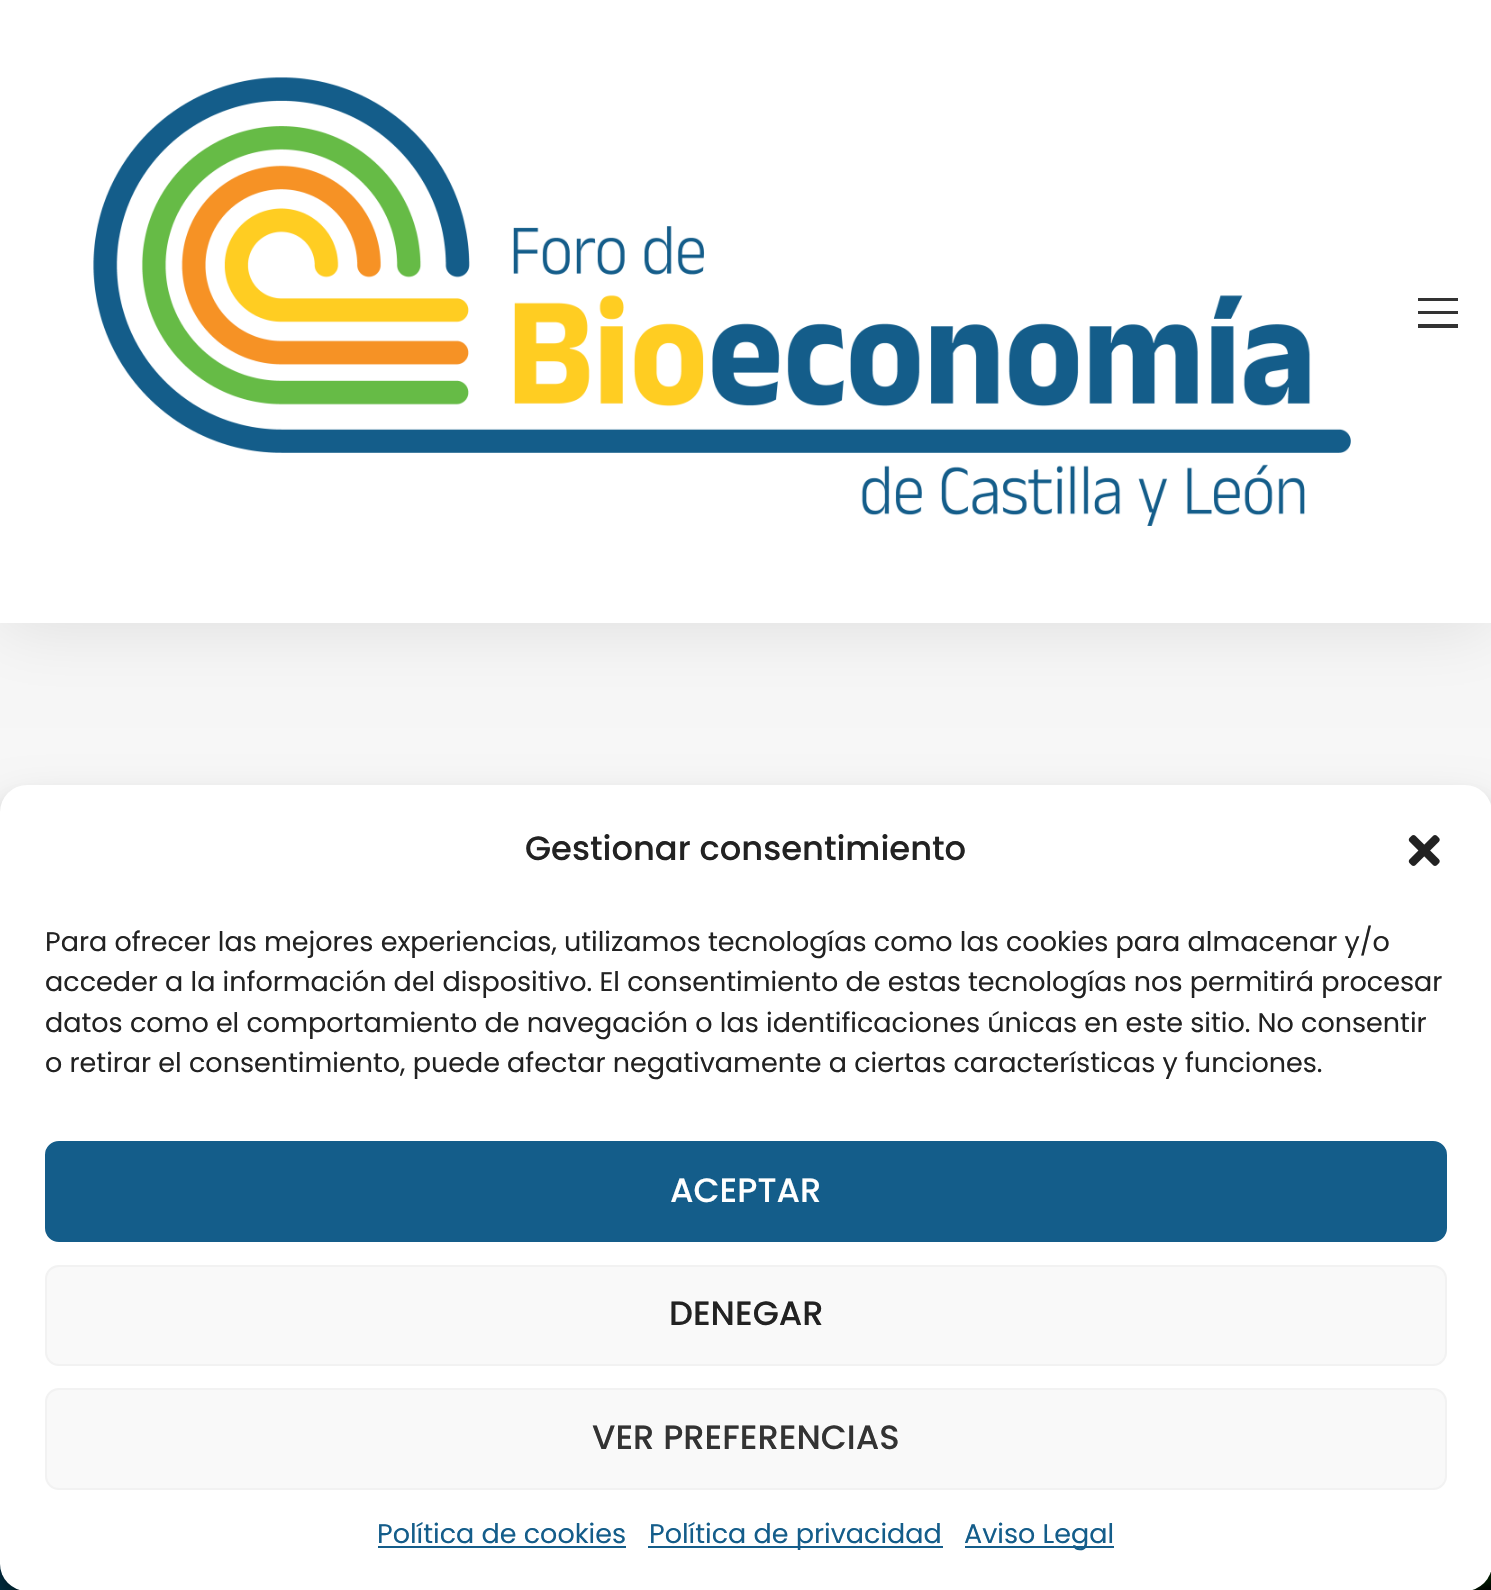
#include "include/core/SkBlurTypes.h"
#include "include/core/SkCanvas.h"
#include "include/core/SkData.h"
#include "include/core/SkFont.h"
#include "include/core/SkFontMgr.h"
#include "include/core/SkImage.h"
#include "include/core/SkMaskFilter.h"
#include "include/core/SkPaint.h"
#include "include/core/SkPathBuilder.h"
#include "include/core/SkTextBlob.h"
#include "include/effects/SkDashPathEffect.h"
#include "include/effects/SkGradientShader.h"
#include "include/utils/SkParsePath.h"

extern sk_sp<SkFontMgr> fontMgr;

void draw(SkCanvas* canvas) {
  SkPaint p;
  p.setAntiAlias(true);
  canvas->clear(SkColorSetRGB(247, 247, 247));
  p.setColor(SkColorSetARGB(26, 0, 0, 0));
  p.setMaskFilter(SkMaskFilter::MakeBlur(kNormal_SkBlurStyle, 34));
  canvas->drawRect(SkRect::MakeLTRB(0, 2, 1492, 626), p);
  p.setMaskFilter(nullptr);
  p.setColor(SK_ColorWHITE);
  canvas->drawRect(SkRect::MakeLTRB(0, 0, 1491, 623), p);
  canvas->drawImageRect(SkImages::DeferredFromEncodedData(SkData::MakeFromFileName("images/1.png")), SkRect::MakeLTRB(93, 77, 1351, 526), SkSamplingOptions());
  p.setColor(SkColorSetRGB(51, 51, 51));
  canvas->drawRect(SkRect::MakeLTRB(1418, 298, 1458, 301), p);
  canvas->drawRect(SkRect::MakeLTRB(1418, 311, 1458, 314), p);
  canvas->drawRect(SkRect::MakeLTRB(1418, 324, 1458, 328), p);
  canvas->drawImageRect(SkImages::DeferredFromEncodedData(SkData::MakeFromFileName("images/2.png")), SkRect::MakeLTRB(0, 1564, 1491, 1590), SkSamplingOptions());
  p.setColor(SkColorSetARGB(59, 0, 0, 0));
  p.setMaskFilter(SkMaskFilter::MakeBlur(kNormal_SkBlurStyle, 7));
  canvas->drawRoundRect(SkRect::MakeLTRB(0, 799, 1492, 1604), 27, 27, p);
  p.setMaskFilter(nullptr);
  p.setColor(SkColorSetARGB(48, 0, 0, 0));
  p.setMaskFilter(SkMaskFilter::MakeBlur(kNormal_SkBlurStyle, 22.5f));
  canvas->drawRoundRect(SkRect::MakeLTRB(0, 808, 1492, 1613), 27, 27, p);
  p.setMaskFilter(nullptr);
  p.setColor(SK_ColorWHITE);
  canvas->drawRoundRect(SkRect::MakeLTRB(0, 785, 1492, 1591), 27, 27, p);
  canvas->drawImageRect(SkImages::DeferredFromEncodedData(SkData::MakeFromFileName("images/3.png")), SkRect::MakeLTRB(1408, 835, 1440, 866), SkSamplingOptions());
  p.setColor(SkColorSetRGB(20, 93, 138));
  canvas->drawRoundRect(SkRect::MakeLTRB(46, 1142, 1446, 1241), 13, 13, p);
  p.setStyle(SkPaint::kStroke_Style);
  p.setStrokeWidth(2);
  canvas->drawRoundRect(SkRect::MakeLTRB(46, 1142, 1446, 1241), 13, 13, p);
  p.setStyle(SkPaint::kFill_Style);
  p.setColor(SkColorSetRGB(249, 249, 249));
  canvas->drawRoundRect(SkRect::MakeLTRB(46, 1266, 1446, 1365), 13, 13, p);
  p.setStyle(SkPaint::kStroke_Style);
  p.setColor(SkColorSetRGB(242, 242, 242));
  canvas->drawRoundRect(SkRect::MakeLTRB(46, 1266, 1446, 1365), 13, 13, p);
  p.setStyle(SkPaint::kFill_Style);
  p.setColor(SkColorSetRGB(249, 249, 249));
  canvas->drawRoundRect(SkRect::MakeLTRB(46, 1389, 1446, 1489), 13, 13, p);
  p.setStyle(SkPaint::kStroke_Style);
  p.setColor(SkColorSetRGB(242, 242, 242));
  canvas->drawRoundRect(SkRect::MakeLTRB(46, 1389, 1446, 1489), 13, 13, p);
  p.setStyle(SkPaint::kFill_Style);
  p.setColor(SkColorSetRGB(20, 93, 138));
  canvas->drawRect(SkRect::MakeLTRB(378, 1546, 626, 1548), p);
  canvas->drawRect(SkRect::MakeLTRB(648, 1546, 943, 1548), p);
  canvas->drawRect(SkRect::MakeLTRB(965, 1546, 1114, 1548), p);
  SkFont font1(fontMgr->matchFamilyStyle("Poppins", SkFontStyle(500, SkFontStyle::kNormal_Width, SkFontStyle::kUpright_Slant)), 33.75f);
  font1.setSubpixel(true);
  p.setColor(SkColorSetRGB(34, 34, 34));
  canvas->drawString("Gestionar consentimiento", 525, 860, font1, p);
  SkFont font2(fontMgr->matchFamilyStyle("Poppins", SkFontStyle::Normal()), 27);
  font2.setSubpixel(true);
  canvas->drawString("Para ofrecer las mejores experiencias, utilizamos tecnologías como las cookies para almacenar y/o", 45, 951, font2, p);
  canvas->drawString("acceder a la información del dispositivo. El consentimiento de estas tecnologías nos permitirá procesar", 45, 991, font2, p);
  canvas->drawString("datos como el comportamiento de navegación o las identificaciones únicas en este sitio. No consentir", 45, 1032, font2, p);
  canvas->drawString("o retirar el consentimiento, puede afectar negativamente a ciertas características y funciones.", 45, 1072, font2, p);
  p.setColor(SK_ColorWHITE);
  canvas->drawString("ACEPTAR", 670, 1202, font1, p);
  p.setColor(SkColorSetRGB(34, 34, 34));
  canvas->drawString("DENEGAR", 669, 1325, font1, p);
  p.setColor(SkColorSetRGB(51, 51, 51));
  canvas->drawString("VER PREFERENCIAS", 592, 1449, font1, p);
  p.setColor(SkColorSetRGB(20, 93, 138));
  canvas->drawString("Política de cookies", 377, 1543, font2, p);
  canvas->drawString("Política de privacidad", 649, 1543, font2, p);
  canvas->drawString("Aviso Legal", 964, 1543, font2, p);
}
